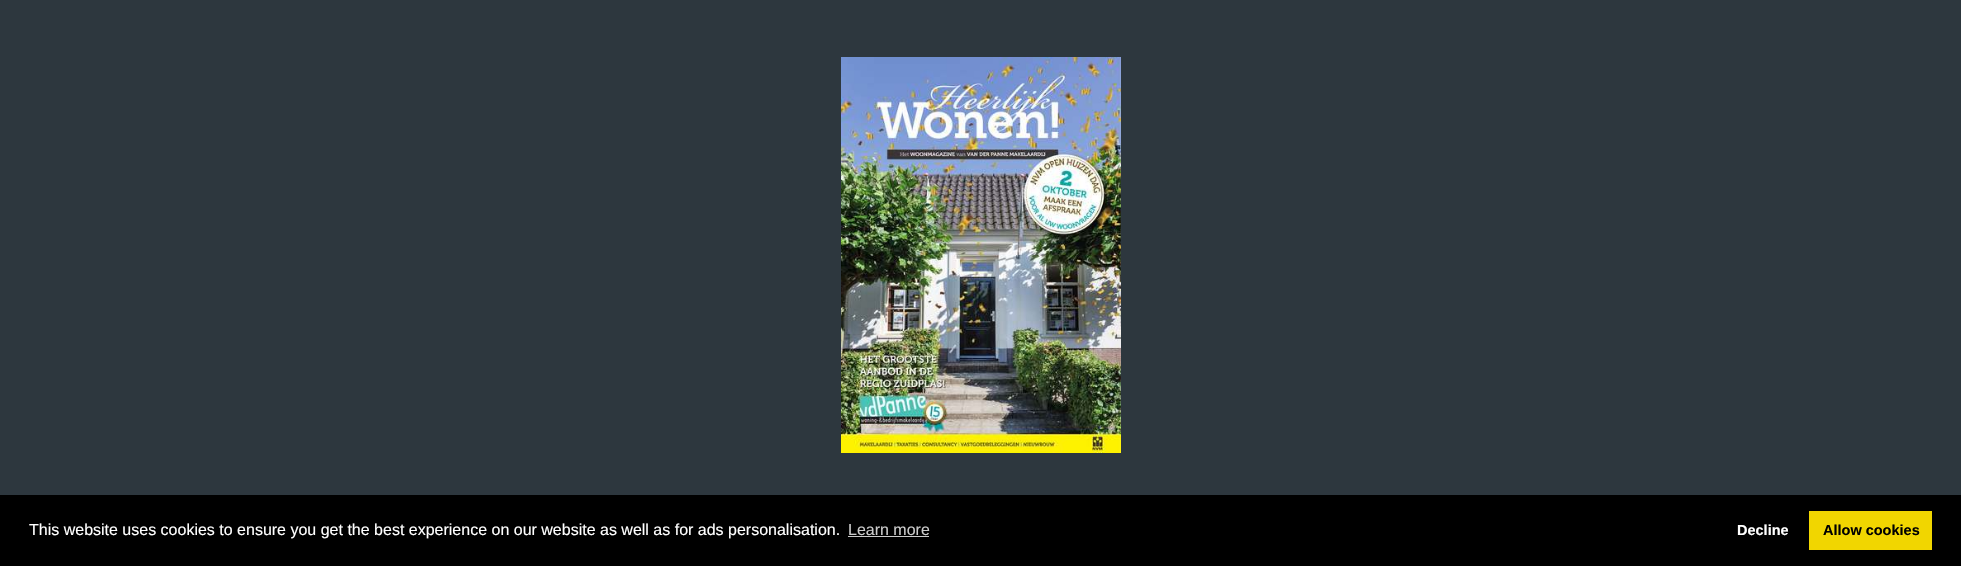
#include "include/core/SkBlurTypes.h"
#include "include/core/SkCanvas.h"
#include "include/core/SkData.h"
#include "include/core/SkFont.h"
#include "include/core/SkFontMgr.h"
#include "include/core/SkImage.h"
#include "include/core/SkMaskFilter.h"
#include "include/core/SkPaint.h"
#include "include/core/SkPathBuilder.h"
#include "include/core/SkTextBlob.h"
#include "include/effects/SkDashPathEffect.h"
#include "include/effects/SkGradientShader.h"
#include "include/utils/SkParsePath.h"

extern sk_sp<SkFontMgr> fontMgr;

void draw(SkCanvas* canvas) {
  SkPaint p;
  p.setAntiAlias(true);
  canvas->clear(SkColorSetRGB(45, 55, 62));
  canvas->drawImageRect(SkImages::DeferredFromEncodedData(SkData::MakeFromFileName("images/1.png")), SkRect::MakeLTRB(841, 57, 1121, 453), SkSamplingOptions());
  p.setColor(SK_ColorBLACK);
  canvas->drawRect(SkRect::MakeLTRB(0, 495, 1961, 566), p);
  p.setColor(SkColorSetRGB(204, 204, 204));
  canvas->drawRect(SkRect::MakeLTRB(848, 536, 929, 537), p);
  p.setColor(SkColorSetRGB(241, 214, 0));
  canvas->drawRect(SkRect::MakeLTRB(1809, 511, 1932, 550), p);
  SkFont font1(fontMgr->matchFamilyStyle("Liberation Sans", SkFontStyle::Normal()), 16);
  font1.setSubpixel(true);
  p.setColor(SK_ColorWHITE);
  canvas->drawString("This website uses cookies to ensure you get the best experience on our website as well as for ads personalisation.", 29, 535, font1, p);
  p.setColor(SkColorSetRGB(204, 204, 204));
  canvas->drawString("Learn more", 848, 535, font1, p);
  SkFont font2(fontMgr->matchFamilyStyle("Liberation Sans", SkFontStyle::Bold()), 14.5f);
  font2.setSubpixel(true);
  p.setColor(SK_ColorWHITE);
  canvas->drawString("Decline", 1737, 535, font2, p);
  p.setColor(SK_ColorBLACK);
  canvas->drawString("Allow cookies", 1823, 535, font2, p);
}
